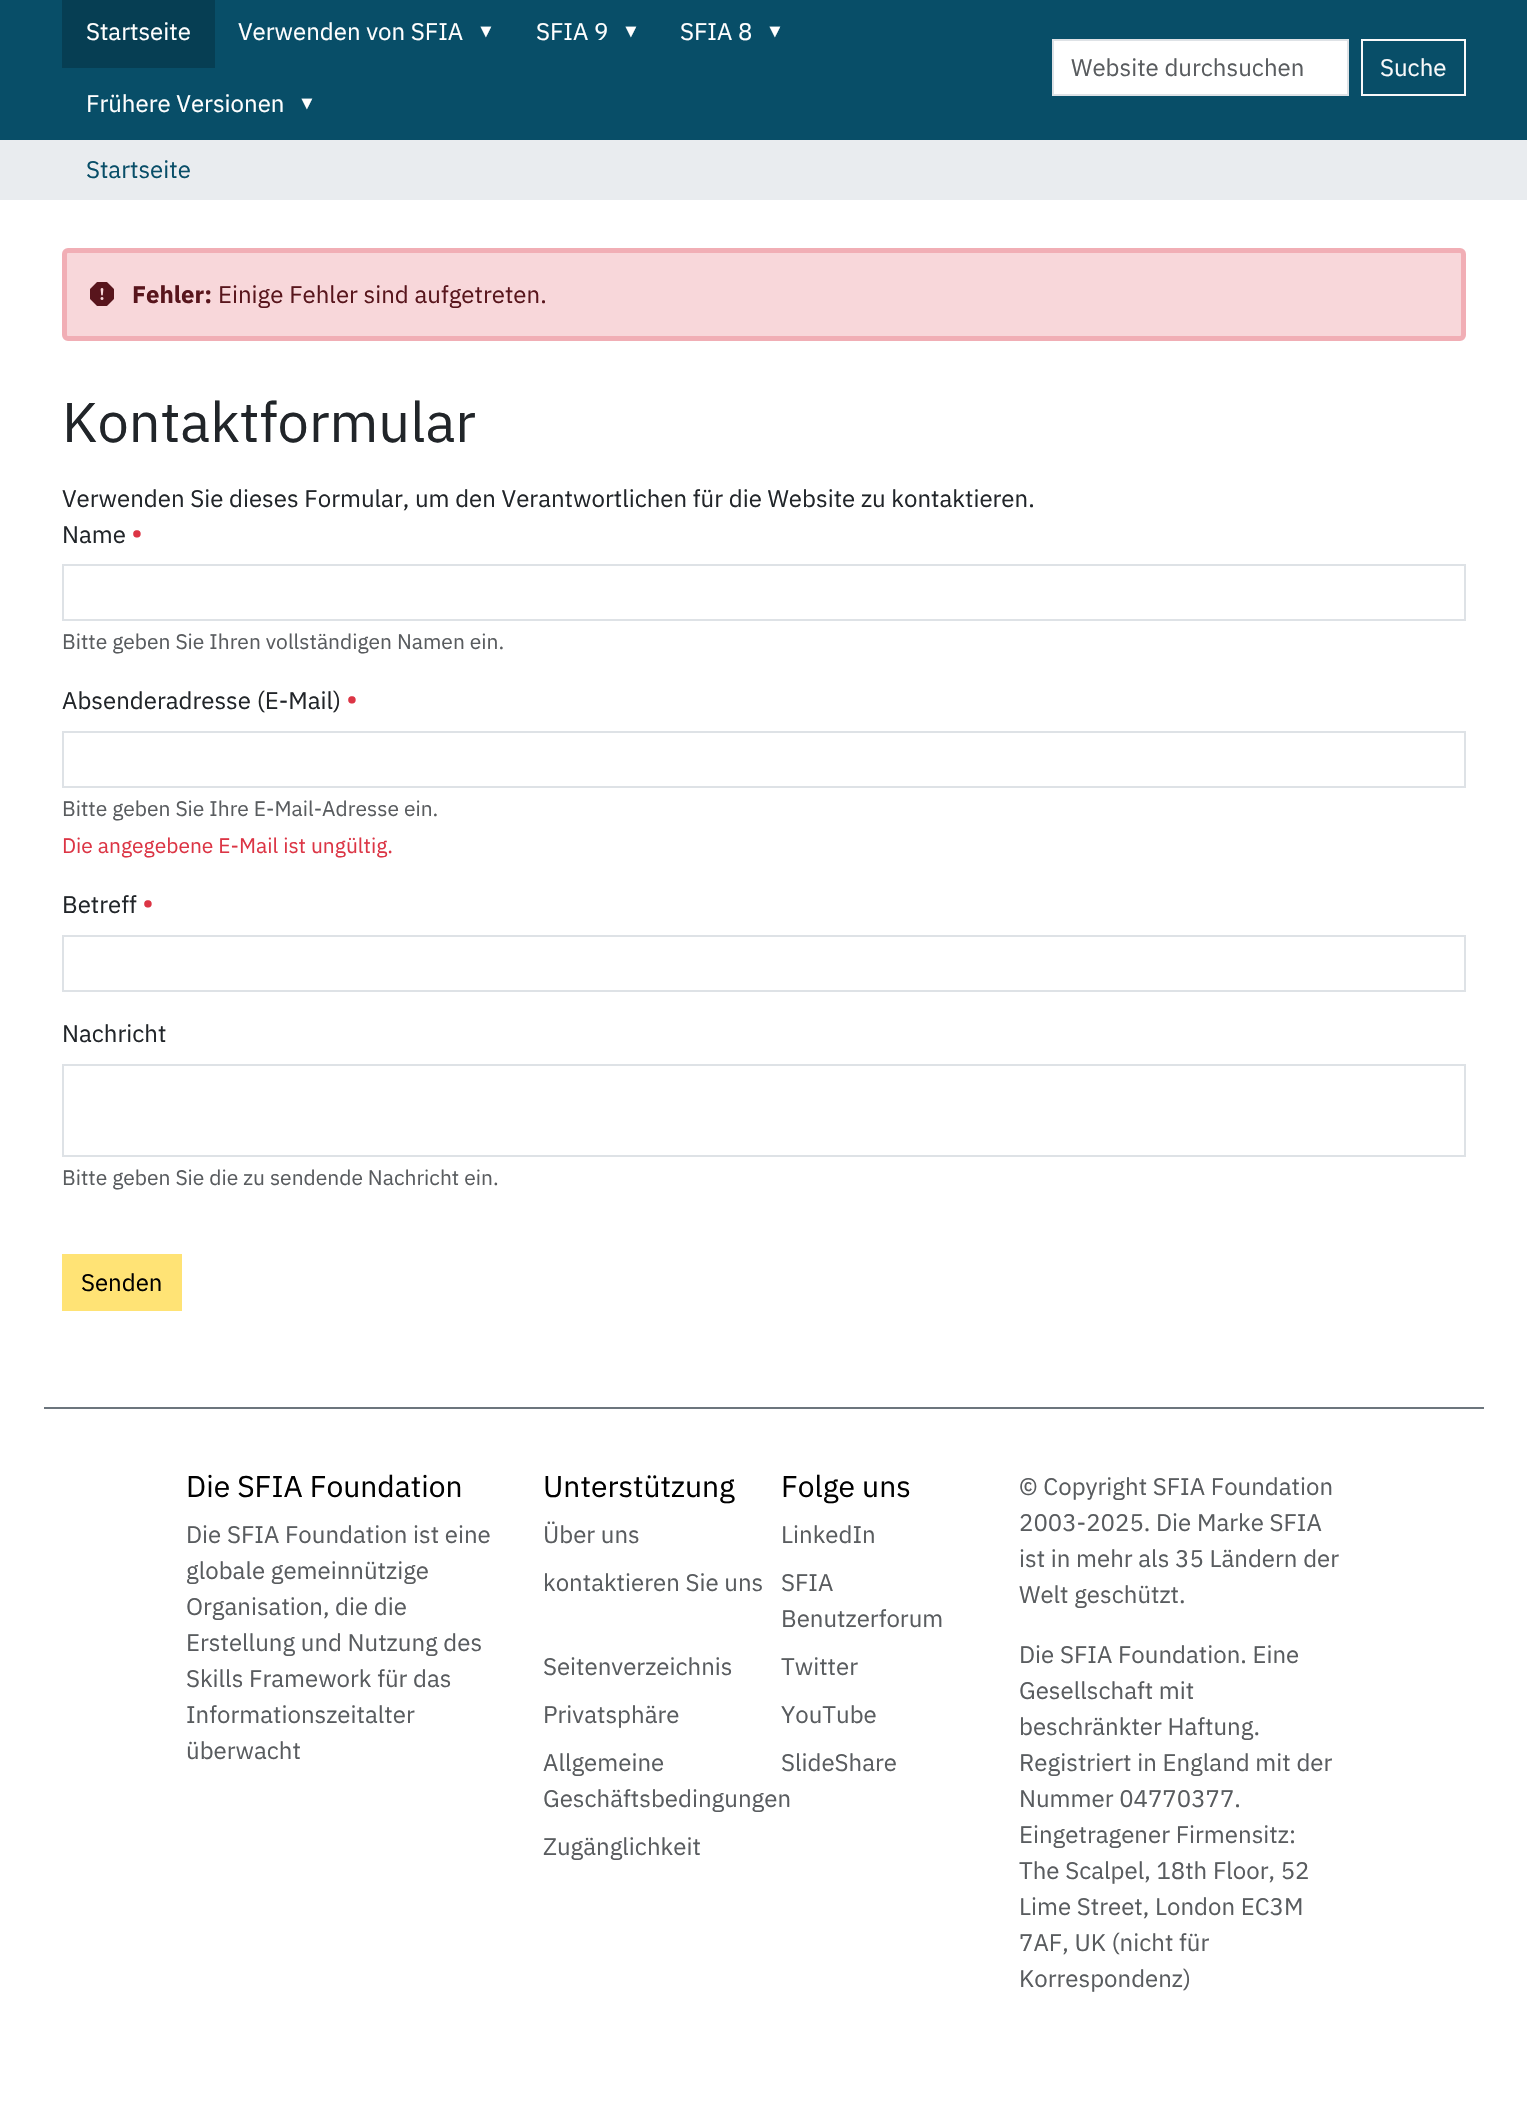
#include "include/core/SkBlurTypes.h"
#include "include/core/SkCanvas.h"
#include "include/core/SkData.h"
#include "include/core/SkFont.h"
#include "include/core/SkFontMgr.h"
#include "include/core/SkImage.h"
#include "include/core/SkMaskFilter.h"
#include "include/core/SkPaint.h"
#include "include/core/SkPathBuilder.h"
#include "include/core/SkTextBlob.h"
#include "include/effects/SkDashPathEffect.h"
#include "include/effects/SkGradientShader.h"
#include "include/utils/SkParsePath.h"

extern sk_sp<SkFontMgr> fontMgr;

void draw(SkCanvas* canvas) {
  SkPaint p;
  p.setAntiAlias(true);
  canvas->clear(SK_ColorWHITE);
  p.setColor(SkColorSetRGB(8, 78, 104));
  canvas->drawRect(SkRect::MakeLTRB(0, 0, 1527, 140), p);
  p.setColor(SkColorSetRGB(6, 62, 83));
  canvas->drawRect(SkRect::MakeLTRB(62, 0, 215, 68), p);
  p.setColor(SK_ColorWHITE);
  canvas->drawRect(SkRect::MakeLTRB(1053, 40, 1348, 95), p);
  p.setStyle(SkPaint::kStroke_Style);
  p.setStrokeWidth(2);
  p.setColor(SkColorSetRGB(222, 226, 230));
  canvas->drawRect(SkRect::MakeLTRB(1053, 40, 1348, 95), p);
  p.setColor(SkColorSetRGB(248, 249, 250));
  canvas->drawRect(SkRect::MakeLTRB(1362, 40, 1465, 95), p);
  p.setStyle(SkPaint::kFill_Style);
  p.setColor(SkColorSetRGB(233, 236, 239));
  canvas->drawRect(SkRect::MakeLTRB(0, 140, 1527, 200), p);
  p.setColor(SkColorSetRGB(248, 215, 218));
  canvas->drawRoundRect(SkRect::MakeLTRB(64.5f, 250.5f, 1463.5f, 338.5f), 3.5f, 3.5f, p);
  p.setStyle(SkPaint::kStroke_Style);
  p.setStrokeWidth(5);
  p.setColor(SkColorSetRGB(241, 174, 181));
  canvas->drawRoundRect(SkRect::MakeLTRB(64.5f, 250.5f, 1463.5f, 338.5f), 3.5f, 3.5f, p);
  canvas->drawImageRect(SkImages::DeferredFromEncodedData(SkData::MakeFromFileName("images/1.png")), SkRect::MakeLTRB(90, 282, 114, 306), SkSamplingOptions());
  p.setStrokeWidth(2);
  p.setColor(SkColorSetRGB(222, 226, 230));
  canvas->drawRect(SkRect::MakeLTRB(63, 565, 1465, 620), p);
  canvas->drawRect(SkRect::MakeLTRB(63, 732, 1465, 787), p);
  canvas->drawRect(SkRect::MakeLTRB(63, 936, 1465, 991), p);
  canvas->drawRect(SkRect::MakeLTRB(63, 1065, 1465, 1156), p);
  p.setStyle(SkPaint::kFill_Style);
  p.setColor(SkColorSetRGB(255, 227, 117));
  canvas->drawRect(SkRect::MakeLTRB(62, 1254, 182, 1311), p);
  p.setColor(SkColorSetRGB(108, 117, 125));
  canvas->drawRect(SkRect::MakeLTRB(44, 1407, 1484, 1409), p);
  SkFont font1(fontMgr->matchFamilyStyle("IBM Plex Sans", SkFontStyle::Normal()), 24);
  font1.setSubpixel(true);
  p.setColor(SK_ColorWHITE);
  canvas->drawString("Startseite", 86, 40, font1, p);
  canvas->drawString("Verwenden von SFIA", 238, 40, font1, p);
  SkFont font2(fontMgr->matchFamilyStyle("Liberation Sans", SkFontStyle::Normal()), 18);
  font2.setSubpixel(true);
  canvas->drawString("▼", 477, 37, font2, p);
  canvas->drawString("SFIA 9", 536, 40, font1, p);
  canvas->drawString("▼", 622, 37, font2, p);
  canvas->drawString("SFIA 8", 680, 40, font1, p);
  canvas->drawString("▼", 766, 37, font2, p);
  canvas->drawString("Frühere Versionen", 86, 112, font1, p);
  canvas->drawString("▼", 298, 109, font2, p);
  p.setColor(SkColorSetRGB(89, 92, 95));
  canvas->drawString("Website durchsuchen", 1071, 76, font1, p);
  p.setColor(SkColorSetRGB(248, 249, 250));
  canvas->drawString("Suche", 1380, 76, font1, p);
  p.setColor(SkColorSetRGB(8, 78, 104));
  canvas->drawString("Startseite", 86, 178, font1, p);
  SkFont font3(fontMgr->matchFamilyStyle("IBM Plex Sans", SkFontStyle::Bold()), 24);
  font3.setSubpixel(true);
  p.setColor(SkColorSetRGB(88, 21, 28));
  canvas->drawString("Fehler:", 132, 303, font3, p);
  canvas->drawString("Einige Fehler sind aufgetreten.", 218, 303, font1, p);
  SkFont font4(fontMgr->matchFamilyStyle("IBM Plex Sans", SkFontStyle::Normal()), 56);
  font4.setSubpixel(true);
  p.setColor(SkColorSetRGB(33, 37, 41));
  canvas->drawString("Kontaktformular", 62, 442, font4, p);
  canvas->drawString("Verwenden Sie dieses Formular, um den Verantwortlichen für die Website zu kontaktieren.", 62, 507, font1, p);
  canvas->drawString("Name", 62, 543, font1, p);
  SkFont font5(fontMgr->matchFamilyStyle("IBM Plex Sans", SkFontStyle::Normal()), 30);
  font5.setSubpixel(true);
  p.setColor(SkColorSetRGB(220, 53, 69));
  canvas->drawString("•", 131, 543, font5, p);
  SkFont font6(fontMgr->matchFamilyStyle("IBM Plex Sans", SkFontStyle::Normal()), 21);
  font6.setSubpixel(true);
  p.setColor(SkColorSetRGB(89, 92, 95));
  canvas->drawString("Bitte geben Sie Ihren vollständigen Namen ein.", 62, 649, font6, p);
  p.setColor(SkColorSetRGB(33, 37, 41));
  canvas->drawString("Absenderadresse (E-Mail)", 62, 709, font1, p);
  p.setColor(SkColorSetRGB(220, 53, 69));
  canvas->drawString("•", 346, 709, font5, p);
  p.setColor(SkColorSetRGB(89, 92, 95));
  canvas->drawString("Bitte geben Sie Ihre E-Mail-Adresse ein.", 62, 816, font6, p);
  p.setColor(SkColorSetRGB(220, 53, 69));
  canvas->drawString("Die angegebene E-Mail ist ungültig.", 62, 853, font6, p);
  p.setColor(SkColorSetRGB(33, 37, 41));
  canvas->drawString("Betreff", 62, 913, font1, p);
  p.setColor(SkColorSetRGB(220, 53, 69));
  canvas->drawString("•", 142, 913, font5, p);
  p.setColor(SkColorSetRGB(33, 37, 41));
  canvas->drawString("Nachricht", 62, 1042, font1, p);
  p.setColor(SkColorSetRGB(89, 92, 95));
  canvas->drawString("Bitte geben Sie die zu sendende Nachricht ein.", 62, 1185, font6, p);
  p.setColor(SK_ColorBLACK);
  canvas->drawString("Senden", 81, 1291, font1, p);
  canvas->drawString("Die SFIA Foundation", 186, 1497, font5, p);
  p.setColor(SkColorSetRGB(89, 92, 95));
  canvas->drawString("Die SFIA Foundation ist eine", 186, 1543, font1, p);
  canvas->drawString("globale gemeinnützige", 186, 1579, font1, p);
  canvas->drawString("Organisation, die die", 186, 1615, font1, p);
  canvas->drawString("Erstellung und Nutzung des", 186, 1651, font1, p);
  canvas->drawString("Skills Framework für das", 186, 1687, font1, p);
  canvas->drawString("Informationszeitalter", 186, 1723, font1, p);
  canvas->drawString("überwacht", 186, 1759, font1, p);
  p.setColor(SK_ColorBLACK);
  canvas->drawString("Unterstützung", 543, 1497, font5, p);
  p.setColor(SkColorSetRGB(89, 92, 95));
  canvas->drawString("Über uns", 543, 1543, font1, p);
  canvas->drawString("kontaktieren Sie uns", 543, 1591, font1, p);
  canvas->drawString("Seitenverzeichnis", 543, 1675, font1, p);
  canvas->drawString("Privatsphäre", 543, 1723, font1, p);
  canvas->drawString("Allgemeine", 543, 1771, font1, p);
  canvas->drawString("Geschäftsbedingungen", 543, 1807, font1, p);
  canvas->drawString("Zugänglichkeit", 543, 1855, font1, p);
  p.setColor(SK_ColorBLACK);
  canvas->drawString("Folge uns", 781, 1497, font5, p);
  p.setColor(SkColorSetRGB(89, 92, 95));
  canvas->drawString("LinkedIn", 781, 1543, font1, p);
  canvas->drawString("SFIA", 781, 1591, font1, p);
  canvas->drawString("Benutzerforum", 781, 1627, font1, p);
  canvas->drawString("Twitter", 781, 1675, font1, p);
  canvas->drawString("YouTube", 781, 1723, font1, p);
  canvas->drawString("SlideShare", 781, 1771, font1, p);
  canvas->drawString("© Copyright SFIA Foundation", 1019, 1495, font1, p);
  canvas->drawString("2003-2025. Die Marke SFIA", 1019, 1531, font1, p);
  canvas->drawString("ist in mehr als 35 Ländern der", 1019, 1567, font1, p);
  canvas->drawString("Welt geschützt.", 1019, 1603, font1, p);
  canvas->drawString("Die SFIA Foundation. Eine", 1019, 1663, font1, p);
  canvas->drawString("Gesellschaft mit", 1019, 1699, font1, p);
  canvas->drawString("beschränkter Haftung.", 1019, 1735, font1, p);
  canvas->drawString("Registriert in England mit der", 1019, 1771, font1, p);
  canvas->drawString("Nummer 04770377.", 1019, 1807, font1, p);
  canvas->drawString("Eingetragener Firmensitz:", 1019, 1843, font1, p);
  canvas->drawString("The Scalpel, 18th Floor, 52", 1019, 1879, font1, p);
  canvas->drawString("Lime Street, London EC3M", 1019, 1915, font1, p);
  canvas->drawString("7AF, UK (nicht für", 1019, 1951, font1, p);
  canvas->drawString("Korrespondenz)", 1019, 1987, font1, p);
}
